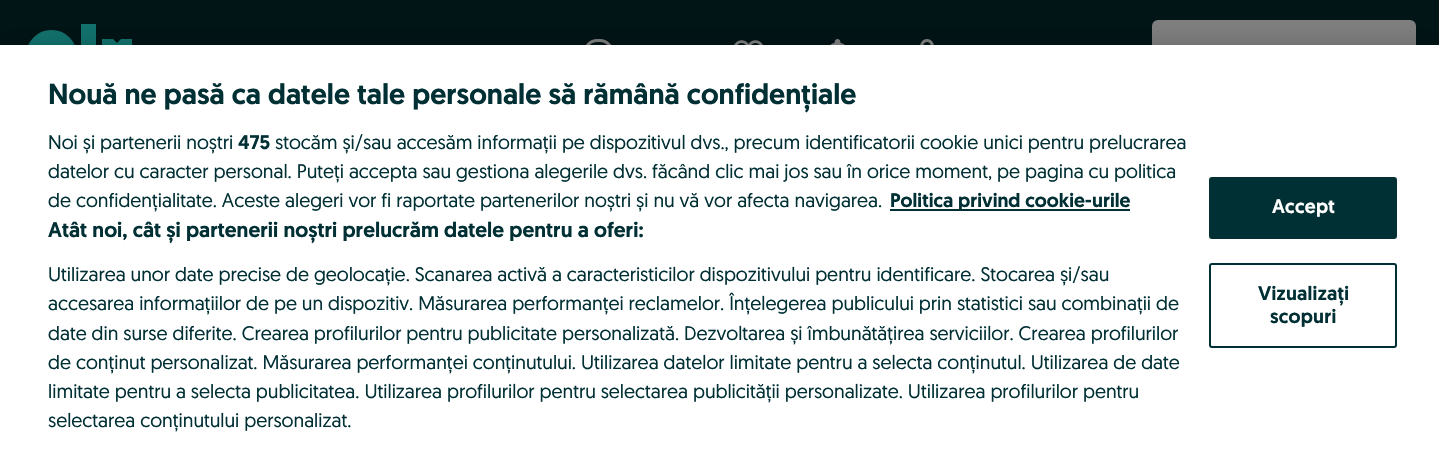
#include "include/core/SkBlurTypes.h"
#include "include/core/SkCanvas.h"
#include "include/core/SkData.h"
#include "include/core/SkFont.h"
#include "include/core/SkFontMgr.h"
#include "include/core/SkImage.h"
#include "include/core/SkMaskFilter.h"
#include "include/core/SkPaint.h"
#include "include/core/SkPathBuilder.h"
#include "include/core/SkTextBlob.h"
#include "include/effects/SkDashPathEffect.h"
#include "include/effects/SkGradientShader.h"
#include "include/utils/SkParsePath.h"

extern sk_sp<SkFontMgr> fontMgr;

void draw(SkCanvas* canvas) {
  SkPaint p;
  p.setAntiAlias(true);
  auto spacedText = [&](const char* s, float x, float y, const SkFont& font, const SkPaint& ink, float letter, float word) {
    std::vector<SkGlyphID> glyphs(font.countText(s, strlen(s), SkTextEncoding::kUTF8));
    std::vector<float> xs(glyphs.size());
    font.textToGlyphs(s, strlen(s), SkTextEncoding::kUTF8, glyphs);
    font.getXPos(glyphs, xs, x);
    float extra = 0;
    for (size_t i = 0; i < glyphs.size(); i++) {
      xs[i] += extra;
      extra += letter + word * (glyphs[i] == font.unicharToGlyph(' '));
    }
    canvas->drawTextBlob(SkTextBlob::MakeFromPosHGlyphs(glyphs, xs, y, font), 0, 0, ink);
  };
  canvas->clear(SkColorSetRGB(1, 20, 22));
  p.setStyle(SkPaint::kStroke_Style);
  p.setStrokeWidth(18);
  p.setColor(SkColorSetRGB(18, 115, 110));
  canvas->drawCircle(51.5f, 55.5f, 16.5f, p);
  p.setStyle(SkPaint::kFill_Style);
  canvas->drawRect(SkRect::MakeLTRB(81, 24, 96, 45), p);
  canvas->save();
  canvas->clipRect(SkRect::MakeLTRB(102, 39, 132, 69));
  canvas->drawPath(SkPathBuilder().moveTo(92, 38).lineTo(112, 38).lineTo(142, 68).lineTo(122, 68).close().detach(), p);
  canvas->drawPath(SkPathBuilder().moveTo(122, 38).lineTo(142, 38).lineTo(112, 68).lineTo(92, 68).close().detach(), p);
  canvas->restore();
  canvas->drawImageRect(SkImages::DeferredFromEncodedData(SkData::MakeFromFileName("images/1.png")), SkRect::MakeLTRB(585, 39, 612, 45), SkSamplingOptions());
  canvas->drawImageRect(SkImages::DeferredFromEncodedData(SkData::MakeFromFileName("images/2.png")), SkRect::MakeLTRB(734, 40, 763, 45), SkSamplingOptions());
  canvas->drawImageRect(SkImages::DeferredFromEncodedData(SkData::MakeFromFileName("images/3.png")), SkRect::MakeLTRB(830, 39, 845, 45), SkSamplingOptions());
  canvas->drawImageRect(SkImages::DeferredFromEncodedData(SkData::MakeFromFileName("images/4.png")), SkRect::MakeLTRB(920, 39, 934, 45), SkSamplingOptions());
  p.setColor(SkColorSetRGB(128, 128, 128));
  canvas->drawRoundRect(SkRect::MakeLTRB(1152, 20, 1416, 89), 6, 6, p);
  p.setColor(SkColorSetARGB(51, 0, 0, 0));
  p.setMaskFilter(SkMaskFilter::MakeBlur(kNormal_SkBlurStyle, 13.5f));
  canvas->drawRect(SkRect::MakeLTRB(0, 45, 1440, 453), p);
  p.setMaskFilter(nullptr);
  p.setColor(SK_ColorWHITE);
  canvas->drawRect(SkRect::MakeLTRB(0, 45, 1439, 453), p);
  p.setColor(SkColorSetRGB(0, 47, 52));
  canvas->drawRect(SkRect::MakeLTRB(890, 209, 1130, 211), p);
  canvas->drawRoundRect(SkRect::MakeLTRB(1210, 178, 1396, 238), 2, 2, p);
  p.setStyle(SkPaint::kStroke_Style);
  p.setStrokeWidth(2);
  canvas->drawRoundRect(SkRect::MakeLTRB(1210, 178, 1396, 238), 2, 2, p);
  canvas->drawRoundRect(SkRect::MakeLTRB(1210, 264, 1396, 347), 2, 2, p);
  SkFont font1(fontMgr->matchFamilyStyle("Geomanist", SkFontStyle(500, SkFontStyle::kNormal_Width, SkFontStyle::kUpright_Slant)), 28.8f);
  font1.setSubpixel(true);
  p.setStyle(SkPaint::kFill_Style);
  canvas->drawString("Nouă ne pasă ca datele tale personale să rămână confidențiale", 48, 104, font1, p);
  SkFont font2(fontMgr->matchFamilyStyle("Geomanist", SkFontStyle::Normal()), 19.5f);
  font2.setSubpixel(true);
  canvas->drawString("Noi și partenerii noștri", 48, 149, font2, p);
  SkFont font3(fontMgr->matchFamilyStyle("Geomanist", SkFontStyle(500, SkFontStyle::kNormal_Width, SkFontStyle::kUpright_Slant)), 19.5f);
  font3.setSubpixel(true);
  canvas->drawString("475", 238, 149, font3, p);
  canvas->drawString("stocăm și/sau accesăm informații pe dispozitivul dvs., precum identificatorii cookie unici pentru prelucrarea", 275, 149, font2, p);
  canvas->drawString("datelor cu caracter personal. Puteți accepta sau gestiona alegerile dvs. făcând clic mai jos sau în orice moment, pe pagina cu politica", 48, 178, font2, p);
  canvas->drawString("de confidențialitate. Aceste alegeri vor fi raportate partenerilor noștri și nu vă vor afecta navigarea.", 48, 207, font2, p);
  canvas->drawString("Politica privind cookie-urile", 890, 207, font3, p);
  SkFont font4(fontMgr->matchFamilyStyle("Geomanist", SkFontStyle(500, SkFontStyle::kNormal_Width, SkFontStyle::kUpright_Slant)), 21.1f);
  font4.setSubpixel(true);
  canvas->drawString("Atât noi, cât și partenerii noștri prelucrăm datele pentru a oferi:", 48, 237, font4, p);
  canvas->drawString("Utilizarea unor date precise de geolocație. Scanarea activă a caracteristicilor dispozitivului pentru identificare. Stocarea și/sau", 48, 281, font2, p);
  canvas->drawString("accesarea informațiilor de pe un dispozitiv. Măsurarea performanței reclamelor. Înțelegerea publicului prin statistici sau combinații de", 48, 310, font2, p);
  canvas->drawString("date din surse diferite. Crearea profilurilor pentru publicitate personalizată. Dezvoltarea și îmbunătățirea serviciilor. Crearea profilurilor", 48, 340, font2, p);
  canvas->drawString("de conținut personalizat. Măsurarea performanței conținutului. Utilizarea datelor limitate pentru a selecta conținutul. Utilizarea de date", 48, 369, font2, p);
  canvas->drawString("limitate pentru a selecta publicitatea. Utilizarea profilurilor pentru selectarea publicității personalizate. Utilizarea profilurilor pentru", 48, 398, font2, p);
  canvas->drawString("selectarea conținutului personalizat.", 48, 427, font2, p);
  p.setColor(SK_ColorWHITE);
  spacedText("Accept", 1272, 213, font3, p, 0.25f, 0);
  p.setColor(SkColorSetRGB(0, 47, 52));
  spacedText("Vizualizați", 1258, 300, font3, p, 0.25f, 0);
  spacedText("scopuri", 1270, 323, font3, p, 0.25f, 0);
}
